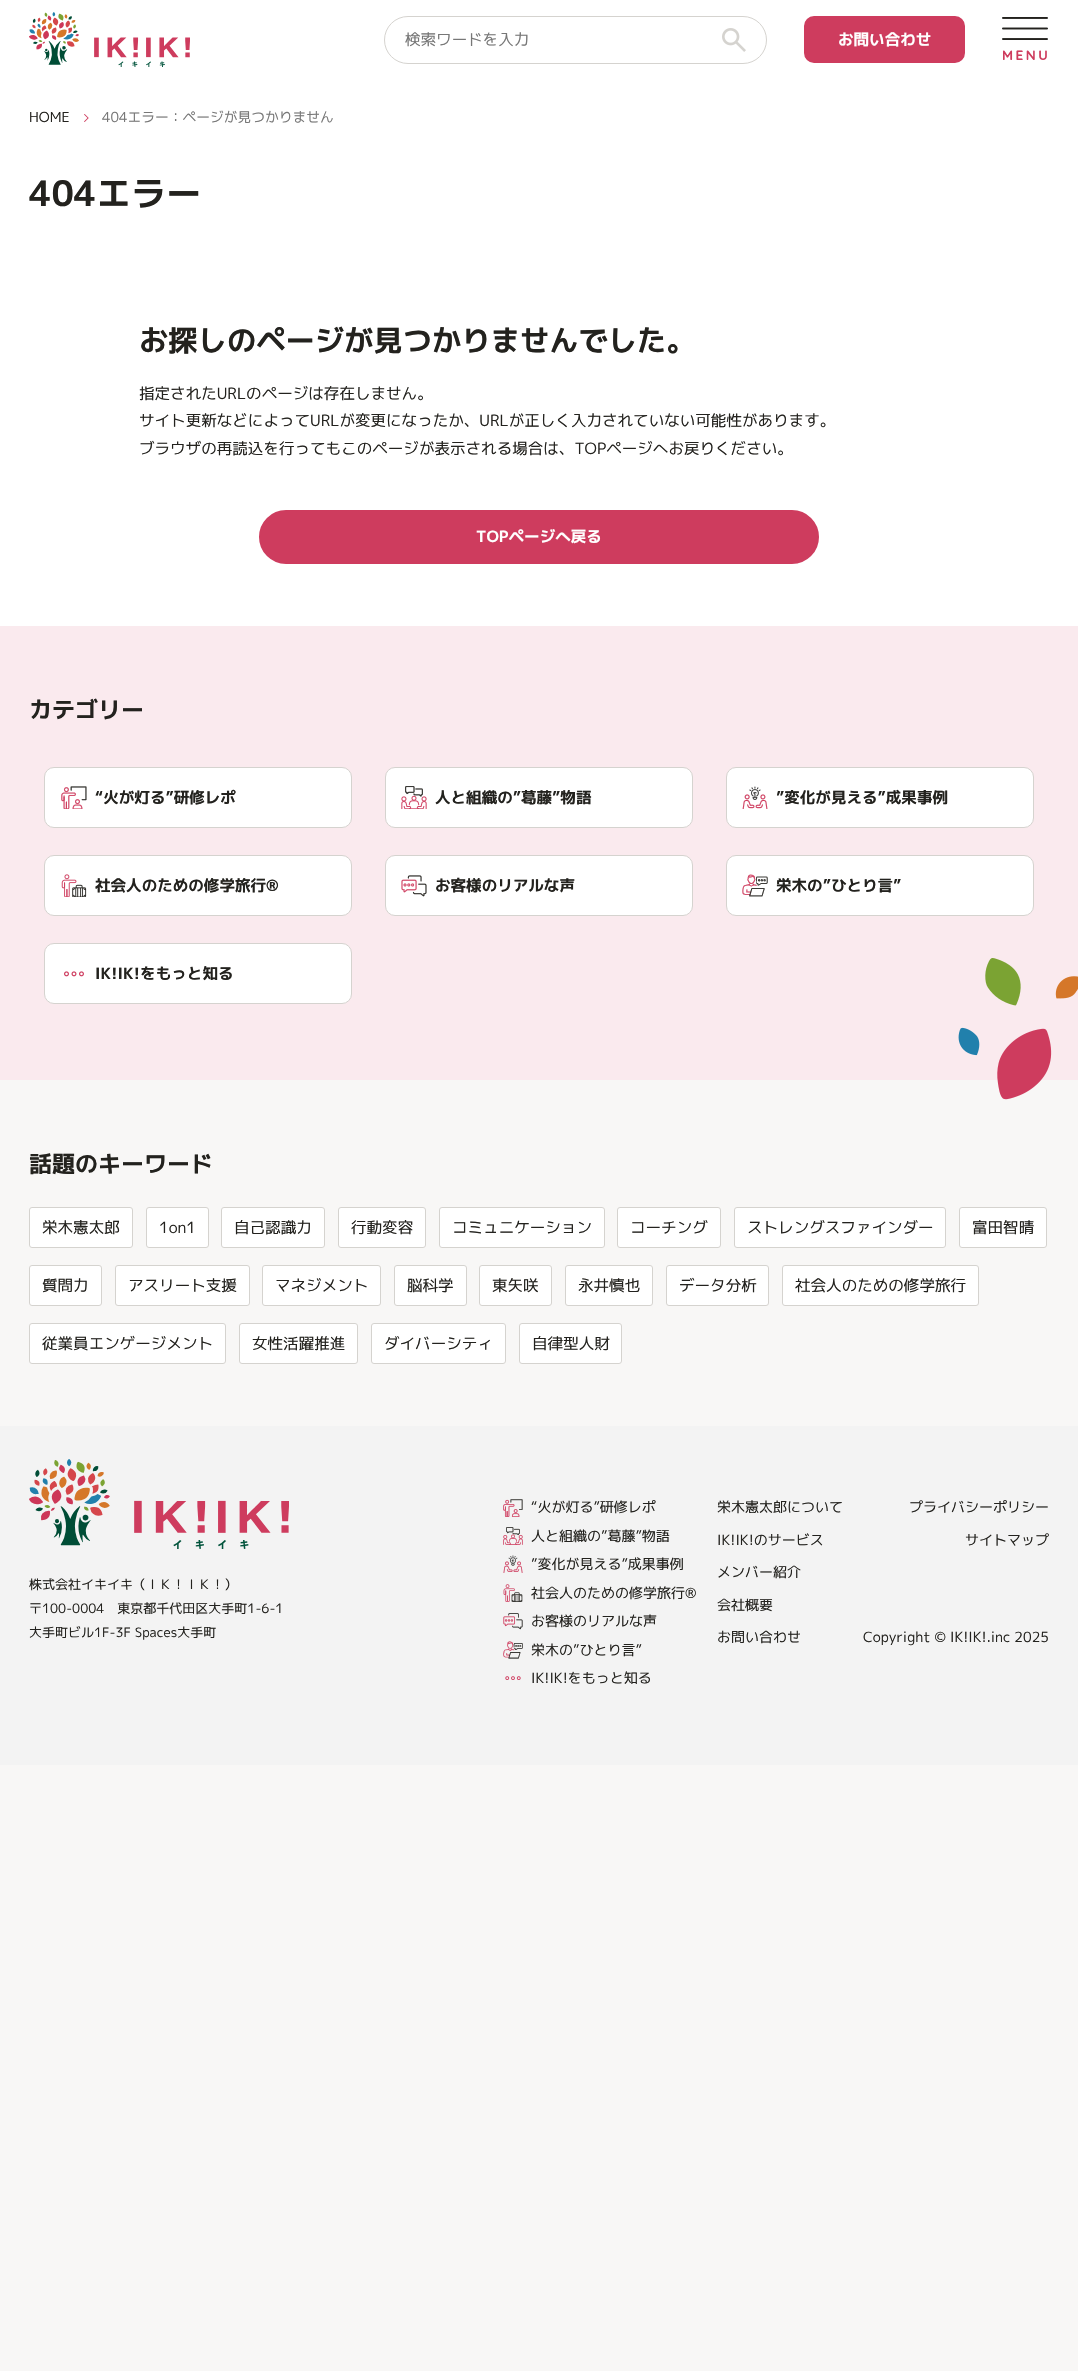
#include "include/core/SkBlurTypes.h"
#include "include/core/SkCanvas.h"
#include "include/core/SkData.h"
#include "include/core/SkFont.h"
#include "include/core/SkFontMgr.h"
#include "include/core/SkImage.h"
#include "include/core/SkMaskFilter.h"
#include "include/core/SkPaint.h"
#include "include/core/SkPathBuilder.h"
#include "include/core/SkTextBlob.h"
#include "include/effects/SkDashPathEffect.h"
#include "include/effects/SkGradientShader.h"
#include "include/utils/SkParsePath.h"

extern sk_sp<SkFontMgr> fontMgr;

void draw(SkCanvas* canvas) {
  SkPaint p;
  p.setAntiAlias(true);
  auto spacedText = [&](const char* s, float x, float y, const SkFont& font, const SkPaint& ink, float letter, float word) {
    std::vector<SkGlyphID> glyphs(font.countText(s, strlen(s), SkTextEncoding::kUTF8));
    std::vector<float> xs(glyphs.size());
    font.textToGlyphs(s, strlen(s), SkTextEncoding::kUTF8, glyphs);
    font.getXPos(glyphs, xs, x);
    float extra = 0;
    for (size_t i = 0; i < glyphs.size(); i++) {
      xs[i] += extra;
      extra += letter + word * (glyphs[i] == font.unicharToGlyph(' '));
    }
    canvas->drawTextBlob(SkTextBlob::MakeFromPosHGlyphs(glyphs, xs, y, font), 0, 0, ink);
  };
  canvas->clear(SkColorSetRGB(248, 247, 246));
  p.setColor(SK_ColorWHITE);
  canvas->drawRect(SkRect::MakeLTRB(0, 0, 1078, 626), p);
  canvas->drawImageRect(SkImages::DeferredFromEncodedData(SkData::MakeFromFileName("images/1.png")), SkRect::MakeLTRB(29, 12, 190, 67), SkSamplingOptions());
  p.setStyle(SkPaint::kStroke_Style);
  p.setStrokeWidth(1);
  p.setColor(SkColorSetRGB(213, 211, 207));
  canvas->drawRoundRect(SkRect::MakeLTRB(384.5f, 16.5f, 766.5f, 63.5f), 23.5f, 23.5f, p);
  canvas->drawImageRect(SkImages::DeferredFromEncodedData(SkData::MakeFromFileName("images/2.png")), SkRect::MakeLTRB(722, 28, 746, 52), SkSamplingOptions());
  p.setStyle(SkPaint::kFill_Style);
  p.setColor(SkColorSetRGB(206, 60, 94));
  canvas->drawRoundRect(SkRect::MakeLTRB(805, 17, 964, 62), 9, 9, p);
  p.setStyle(SkPaint::kStroke_Style);
  p.setStrokeWidth(2);
  canvas->drawRoundRect(SkRect::MakeLTRB(805, 17, 964, 62), 9, 9, p);
  canvas->drawImageRect(SkImages::DeferredFromEncodedData(SkData::MakeFromFileName("images/3.png")), SkRect::MakeLTRB(1002, 17, 1048, 40), SkSamplingOptions());
  canvas->drawImageRect(SkImages::DeferredFromEncodedData(SkData::MakeFromFileName("images/4.png")), SkRect::MakeLTRB(84, 114, 89, 122), SkSamplingOptions());
  p.setStyle(SkPaint::kFill_Style);
  canvas->drawRoundRect(SkRect::MakeLTRB(260, 511, 818, 563), 26, 26, p);
  p.setStyle(SkPaint::kStroke_Style);
  canvas->drawRoundRect(SkRect::MakeLTRB(260, 511, 818, 563), 26, 26, p);
  p.setStyle(SkPaint::kFill_Style);
  p.setColor(SkColorSetRGB(250, 234, 238));
  canvas->drawRect(SkRect::MakeLTRB(0, 626, 1078, 1080), p);
  p.setColor(SK_ColorWHITE);
  canvas->drawRoundRect(SkRect::MakeLTRB(44.5f, 767.5f, 351.5f, 827.5f), 9.5f, 9.5f, p);
  p.setStyle(SkPaint::kStroke_Style);
  p.setStrokeWidth(1);
  p.setColor(SkColorSetRGB(213, 211, 207));
  canvas->drawRoundRect(SkRect::MakeLTRB(44.5f, 767.5f, 351.5f, 827.5f), 9.5f, 9.5f, p);
  canvas->drawImageRect(SkImages::DeferredFromEncodedData(SkData::MakeFromFileName("images/5.png")), SkRect::MakeLTRB(61, 786, 87, 809), SkSamplingOptions());
  p.setStyle(SkPaint::kFill_Style);
  p.setColor(SK_ColorWHITE);
  canvas->drawRoundRect(SkRect::MakeLTRB(385.5f, 767.5f, 692.5f, 827.5f), 9.5f, 9.5f, p);
  p.setStyle(SkPaint::kStroke_Style);
  p.setColor(SkColorSetRGB(213, 211, 207));
  canvas->drawRoundRect(SkRect::MakeLTRB(385.5f, 767.5f, 692.5f, 827.5f), 9.5f, 9.5f, p);
  canvas->drawImageRect(SkImages::DeferredFromEncodedData(SkData::MakeFromFileName("images/6.png")), SkRect::MakeLTRB(401, 786, 427, 809), SkSamplingOptions());
  p.setStyle(SkPaint::kFill_Style);
  p.setColor(SK_ColorWHITE);
  canvas->drawRoundRect(SkRect::MakeLTRB(726.5f, 767.5f, 1033.5f, 827.5f), 9.5f, 9.5f, p);
  p.setStyle(SkPaint::kStroke_Style);
  p.setColor(SkColorSetRGB(213, 211, 207));
  canvas->drawRoundRect(SkRect::MakeLTRB(726.5f, 767.5f, 1033.5f, 827.5f), 9.5f, 9.5f, p);
  canvas->drawImageRect(SkImages::DeferredFromEncodedData(SkData::MakeFromFileName("images/7.png")), SkRect::MakeLTRB(742, 786, 768, 809), SkSamplingOptions());
  p.setStyle(SkPaint::kFill_Style);
  p.setColor(SK_ColorWHITE);
  canvas->drawRoundRect(SkRect::MakeLTRB(44.5f, 855.5f, 351.5f, 915.5f), 9.5f, 9.5f, p);
  p.setStyle(SkPaint::kStroke_Style);
  p.setColor(SkColorSetRGB(213, 211, 207));
  canvas->drawRoundRect(SkRect::MakeLTRB(44.5f, 855.5f, 351.5f, 915.5f), 9.5f, 9.5f, p);
  canvas->drawImageRect(SkImages::DeferredFromEncodedData(SkData::MakeFromFileName("images/8.png")), SkRect::MakeLTRB(61, 874, 87, 897), SkSamplingOptions());
  p.setStyle(SkPaint::kFill_Style);
  p.setColor(SK_ColorWHITE);
  canvas->drawRoundRect(SkRect::MakeLTRB(385.5f, 855.5f, 692.5f, 915.5f), 9.5f, 9.5f, p);
  p.setStyle(SkPaint::kStroke_Style);
  p.setColor(SkColorSetRGB(213, 211, 207));
  canvas->drawRoundRect(SkRect::MakeLTRB(385.5f, 855.5f, 692.5f, 915.5f), 9.5f, 9.5f, p);
  canvas->drawImageRect(SkImages::DeferredFromEncodedData(SkData::MakeFromFileName("images/9.png")), SkRect::MakeLTRB(401, 875, 427, 897), SkSamplingOptions());
  p.setStyle(SkPaint::kFill_Style);
  p.setColor(SK_ColorWHITE);
  canvas->drawRoundRect(SkRect::MakeLTRB(726.5f, 855.5f, 1033.5f, 915.5f), 9.5f, 9.5f, p);
  p.setStyle(SkPaint::kStroke_Style);
  p.setColor(SkColorSetRGB(213, 211, 207));
  canvas->drawRoundRect(SkRect::MakeLTRB(726.5f, 855.5f, 1033.5f, 915.5f), 9.5f, 9.5f, p);
  canvas->drawImageRect(SkImages::DeferredFromEncodedData(SkData::MakeFromFileName("images/10.png")), SkRect::MakeLTRB(742, 874, 768, 897), SkSamplingOptions());
  p.setStyle(SkPaint::kFill_Style);
  p.setColor(SK_ColorWHITE);
  canvas->drawRoundRect(SkRect::MakeLTRB(44.5f, 943.5f, 351.5f, 1003.5f), 9.5f, 9.5f, p);
  p.setStyle(SkPaint::kStroke_Style);
  p.setColor(SkColorSetRGB(213, 211, 207));
  canvas->drawRoundRect(SkRect::MakeLTRB(44.5f, 943.5f, 351.5f, 1003.5f), 9.5f, 9.5f, p);
  canvas->drawImageRect(SkImages::DeferredFromEncodedData(SkData::MakeFromFileName("images/11.png")), SkRect::MakeLTRB(64, 971, 84, 977), SkSamplingOptions());
  canvas->drawImageRect(SkImages::DeferredFromEncodedData(SkData::MakeFromFileName("images/12.png")), SkRect::MakeLTRB(958, 958, 1078, 1100), SkSamplingOptions());
  p.setStyle(SkPaint::kFill_Style);
  p.setColor(SK_ColorWHITE);
  canvas->drawRoundRect(SkRect::MakeLTRB(29.5f, 1207.5f, 132.5f, 1247.5f), 2.5f, 2.5f, p);
  p.setStyle(SkPaint::kStroke_Style);
  p.setColor(SkColorSetRGB(213, 211, 207));
  canvas->drawRoundRect(SkRect::MakeLTRB(29.5f, 1207.5f, 132.5f, 1247.5f), 2.5f, 2.5f, p);
  p.setStyle(SkPaint::kFill_Style);
  p.setColor(SK_ColorWHITE);
  canvas->drawRoundRect(SkRect::MakeLTRB(146.5f, 1207.5f, 208.5f, 1247.5f), 2.5f, 2.5f, p);
  p.setStyle(SkPaint::kStroke_Style);
  p.setColor(SkColorSetRGB(213, 211, 207));
  canvas->drawRoundRect(SkRect::MakeLTRB(146.5f, 1207.5f, 208.5f, 1247.5f), 2.5f, 2.5f, p);
  p.setStyle(SkPaint::kFill_Style);
  p.setColor(SK_ColorWHITE);
  canvas->drawRoundRect(SkRect::MakeLTRB(221.5f, 1207.5f, 324.5f, 1247.5f), 2.5f, 2.5f, p);
  p.setStyle(SkPaint::kStroke_Style);
  p.setColor(SkColorSetRGB(213, 211, 207));
  canvas->drawRoundRect(SkRect::MakeLTRB(221.5f, 1207.5f, 324.5f, 1247.5f), 2.5f, 2.5f, p);
  p.setStyle(SkPaint::kFill_Style);
  p.setColor(SK_ColorWHITE);
  canvas->drawRoundRect(SkRect::MakeLTRB(338.5f, 1207.5f, 425.5f, 1247.5f), 2.5f, 2.5f, p);
  p.setStyle(SkPaint::kStroke_Style);
  p.setColor(SkColorSetRGB(213, 211, 207));
  canvas->drawRoundRect(SkRect::MakeLTRB(338.5f, 1207.5f, 425.5f, 1247.5f), 2.5f, 2.5f, p);
  p.setStyle(SkPaint::kFill_Style);
  p.setColor(SK_ColorWHITE);
  canvas->drawRoundRect(SkRect::MakeLTRB(439.5f, 1207.5f, 604.5f, 1247.5f), 2.5f, 2.5f, p);
  p.setStyle(SkPaint::kStroke_Style);
  p.setColor(SkColorSetRGB(213, 211, 207));
  canvas->drawRoundRect(SkRect::MakeLTRB(439.5f, 1207.5f, 604.5f, 1247.5f), 2.5f, 2.5f, p);
  p.setStyle(SkPaint::kFill_Style);
  p.setColor(SK_ColorWHITE);
  canvas->drawRoundRect(SkRect::MakeLTRB(617.5f, 1207.5f, 720.5f, 1247.5f), 2.5f, 2.5f, p);
  p.setStyle(SkPaint::kStroke_Style);
  p.setColor(SkColorSetRGB(213, 211, 207));
  canvas->drawRoundRect(SkRect::MakeLTRB(617.5f, 1207.5f, 720.5f, 1247.5f), 2.5f, 2.5f, p);
  p.setStyle(SkPaint::kFill_Style);
  p.setColor(SK_ColorWHITE);
  canvas->drawRoundRect(SkRect::MakeLTRB(734.5f, 1207.5f, 945.5f, 1247.5f), 2.5f, 2.5f, p);
  p.setStyle(SkPaint::kStroke_Style);
  p.setColor(SkColorSetRGB(213, 211, 207));
  canvas->drawRoundRect(SkRect::MakeLTRB(734.5f, 1207.5f, 945.5f, 1247.5f), 2.5f, 2.5f, p);
  p.setStyle(SkPaint::kFill_Style);
  p.setColor(SK_ColorWHITE);
  canvas->drawRoundRect(SkRect::MakeLTRB(959.5f, 1207.5f, 1046.5f, 1247.5f), 2.5f, 2.5f, p);
  p.setStyle(SkPaint::kStroke_Style);
  p.setColor(SkColorSetRGB(213, 211, 207));
  canvas->drawRoundRect(SkRect::MakeLTRB(959.5f, 1207.5f, 1046.5f, 1247.5f), 2.5f, 2.5f, p);
  p.setStyle(SkPaint::kFill_Style);
  p.setColor(SK_ColorWHITE);
  canvas->drawRoundRect(SkRect::MakeLTRB(29.5f, 1265.5f, 101.5f, 1305.5f), 2.5f, 2.5f, p);
  p.setStyle(SkPaint::kStroke_Style);
  p.setColor(SkColorSetRGB(213, 211, 207));
  canvas->drawRoundRect(SkRect::MakeLTRB(29.5f, 1265.5f, 101.5f, 1305.5f), 2.5f, 2.5f, p);
  p.setStyle(SkPaint::kFill_Style);
  p.setColor(SK_ColorWHITE);
  canvas->drawRoundRect(SkRect::MakeLTRB(115.5f, 1265.5f, 249.5f, 1305.5f), 2.5f, 2.5f, p);
  p.setStyle(SkPaint::kStroke_Style);
  p.setColor(SkColorSetRGB(213, 211, 207));
  canvas->drawRoundRect(SkRect::MakeLTRB(115.5f, 1265.5f, 249.5f, 1305.5f), 2.5f, 2.5f, p);
  p.setStyle(SkPaint::kFill_Style);
  p.setColor(SK_ColorWHITE);
  canvas->drawRoundRect(SkRect::MakeLTRB(262.5f, 1265.5f, 380.5f, 1305.5f), 2.5f, 2.5f, p);
  p.setStyle(SkPaint::kStroke_Style);
  p.setColor(SkColorSetRGB(213, 211, 207));
  canvas->drawRoundRect(SkRect::MakeLTRB(262.5f, 1265.5f, 380.5f, 1305.5f), 2.5f, 2.5f, p);
  p.setStyle(SkPaint::kFill_Style);
  p.setColor(SK_ColorWHITE);
  canvas->drawRoundRect(SkRect::MakeLTRB(394.5f, 1265.5f, 466.5f, 1305.5f), 2.5f, 2.5f, p);
  p.setStyle(SkPaint::kStroke_Style);
  p.setColor(SkColorSetRGB(213, 211, 207));
  canvas->drawRoundRect(SkRect::MakeLTRB(394.5f, 1265.5f, 466.5f, 1305.5f), 2.5f, 2.5f, p);
  p.setStyle(SkPaint::kFill_Style);
  p.setColor(SK_ColorWHITE);
  canvas->drawRoundRect(SkRect::MakeLTRB(479.5f, 1265.5f, 551.5f, 1305.5f), 2.5f, 2.5f, p);
  p.setStyle(SkPaint::kStroke_Style);
  p.setColor(SkColorSetRGB(213, 211, 207));
  canvas->drawRoundRect(SkRect::MakeLTRB(479.5f, 1265.5f, 551.5f, 1305.5f), 2.5f, 2.5f, p);
  p.setStyle(SkPaint::kFill_Style);
  p.setColor(SK_ColorWHITE);
  canvas->drawRoundRect(SkRect::MakeLTRB(565.5f, 1265.5f, 652.5f, 1305.5f), 2.5f, 2.5f, p);
  p.setStyle(SkPaint::kStroke_Style);
  p.setColor(SkColorSetRGB(213, 211, 207));
  canvas->drawRoundRect(SkRect::MakeLTRB(565.5f, 1265.5f, 652.5f, 1305.5f), 2.5f, 2.5f, p);
  p.setStyle(SkPaint::kFill_Style);
  p.setColor(SK_ColorWHITE);
  canvas->drawRoundRect(SkRect::MakeLTRB(666.5f, 1265.5f, 768.5f, 1305.5f), 2.5f, 2.5f, p);
  p.setStyle(SkPaint::kStroke_Style);
  p.setColor(SkColorSetRGB(213, 211, 207));
  canvas->drawRoundRect(SkRect::MakeLTRB(666.5f, 1265.5f, 768.5f, 1305.5f), 2.5f, 2.5f, p);
  p.setStyle(SkPaint::kFill_Style);
  p.setColor(SK_ColorWHITE);
  canvas->drawRoundRect(SkRect::MakeLTRB(782.5f, 1265.5f, 978.5f, 1305.5f), 2.5f, 2.5f, p);
  p.setStyle(SkPaint::kStroke_Style);
  p.setColor(SkColorSetRGB(213, 211, 207));
  canvas->drawRoundRect(SkRect::MakeLTRB(782.5f, 1265.5f, 978.5f, 1305.5f), 2.5f, 2.5f, p);
  p.setStyle(SkPaint::kFill_Style);
  p.setColor(SK_ColorWHITE);
  canvas->drawRoundRect(SkRect::MakeLTRB(29.5f, 1323.5f, 225.5f, 1363.5f), 2.5f, 2.5f, p);
  p.setStyle(SkPaint::kStroke_Style);
  p.setColor(SkColorSetRGB(213, 211, 207));
  canvas->drawRoundRect(SkRect::MakeLTRB(29.5f, 1323.5f, 225.5f, 1363.5f), 2.5f, 2.5f, p);
  p.setStyle(SkPaint::kFill_Style);
  p.setColor(SK_ColorWHITE);
  canvas->drawRoundRect(SkRect::MakeLTRB(239.5f, 1323.5f, 357.5f, 1363.5f), 2.5f, 2.5f, p);
  p.setStyle(SkPaint::kStroke_Style);
  p.setColor(SkColorSetRGB(213, 211, 207));
  canvas->drawRoundRect(SkRect::MakeLTRB(239.5f, 1323.5f, 357.5f, 1363.5f), 2.5f, 2.5f, p);
  p.setStyle(SkPaint::kFill_Style);
  p.setColor(SK_ColorWHITE);
  canvas->drawRoundRect(SkRect::MakeLTRB(371.5f, 1323.5f, 505.5f, 1363.5f), 2.5f, 2.5f, p);
  p.setStyle(SkPaint::kStroke_Style);
  p.setColor(SkColorSetRGB(213, 211, 207));
  canvas->drawRoundRect(SkRect::MakeLTRB(371.5f, 1323.5f, 505.5f, 1363.5f), 2.5f, 2.5f, p);
  p.setStyle(SkPaint::kFill_Style);
  p.setColor(SK_ColorWHITE);
  canvas->drawRoundRect(SkRect::MakeLTRB(519.5f, 1323.5f, 621.5f, 1363.5f), 2.5f, 2.5f, p);
  p.setStyle(SkPaint::kStroke_Style);
  p.setColor(SkColorSetRGB(213, 211, 207));
  canvas->drawRoundRect(SkRect::MakeLTRB(519.5f, 1323.5f, 621.5f, 1363.5f), 2.5f, 2.5f, p);
  p.setStyle(SkPaint::kFill_Style);
  p.setColor(SkColorSetRGB(243, 243, 243));
  canvas->drawRect(SkRect::MakeLTRB(0, 1426, 1078, 1765), p);
  canvas->drawImageRect(SkImages::DeferredFromEncodedData(SkData::MakeFromFileName("images/13.png")), SkRect::MakeLTRB(29, 1459, 289, 1549), SkSamplingOptions());
  canvas->drawImageRect(SkImages::DeferredFromEncodedData(SkData::MakeFromFileName("images/14.png")), SkRect::MakeLTRB(503, 1499, 523, 1517), SkSamplingOptions());
  canvas->drawImageRect(SkImages::DeferredFromEncodedData(SkData::MakeFromFileName("images/15.png")), SkRect::MakeLTRB(503, 1527, 523, 1545), SkSamplingOptions());
  canvas->drawImageRect(SkImages::DeferredFromEncodedData(SkData::MakeFromFileName("images/16.png")), SkRect::MakeLTRB(503, 1555, 523, 1573), SkSamplingOptions());
  canvas->drawImageRect(SkImages::DeferredFromEncodedData(SkData::MakeFromFileName("images/17.png")), SkRect::MakeLTRB(503, 1584, 523, 1602), SkSamplingOptions());
  canvas->drawImageRect(SkImages::DeferredFromEncodedData(SkData::MakeFromFileName("images/18.png")), SkRect::MakeLTRB(503, 1613, 523, 1630), SkSamplingOptions());
  canvas->drawImageRect(SkImages::DeferredFromEncodedData(SkData::MakeFromFileName("images/19.png")), SkRect::MakeLTRB(503, 1641, 523, 1659), SkSamplingOptions());
  canvas->drawImageRect(SkImages::DeferredFromEncodedData(SkData::MakeFromFileName("images/20.png")), SkRect::MakeLTRB(505, 1676, 521, 1680), SkSamplingOptions());
  SkFont font1(fontMgr->matchFamilyStyle("M PLUS 1p", SkFontStyle::Normal()), 15.55f);
  font1.setSubpixel(true);
  p.setColor(SkColorSetRGB(119, 119, 119));
  canvas->drawString("検索ワードを入力", 405, 45, font1, p);
  SkFont font2(fontMgr->matchFamilyStyle("M PLUS 1p", SkFontStyle::Bold()), 15.55f);
  font2.setSubpixel(true);
  p.setColor(SK_ColorWHITE);
  canvas->drawString("お問い合わせ", 838, 45, font2, p);
  SkFont font3(fontMgr->matchFamilyStyle("Quicksand", SkFontStyle::Bold()), 13.5f);
  font3.setSubpixel(true);
  p.setColor(SkColorSetRGB(206, 60, 94));
  spacedText("MENU", 1002, 60, font3, p, 2.5f, 0);
  SkFont font4(fontMgr->matchFamilyStyle("M PLUS 1p", SkFontStyle::Normal()), 13.75f);
  font4.setSubpixel(true);
  p.setColor(SkColorSetRGB(35, 34, 30));
  canvas->drawString("HOME", 29, 122, font4, p);
  p.setColor(SkColorSetRGB(119, 119, 119));
  canvas->drawString("404エラー：ページが見つかりません", 102, 122, font4, p);
  SkFont font5(fontMgr->matchFamilyStyle("M PLUS 1p", SkFontStyle::Bold()), 35);
  font5.setSubpixel(true);
  p.setColor(SkColorSetRGB(35, 34, 30));
  canvas->drawString("404エラー", 29, 206, font5, p);
  SkFont font6(fontMgr->matchFamilyStyle("M PLUS 1p", SkFontStyle::Bold()), 29.3f);
  font6.setSubpixel(true);
  canvas->drawString("お探しのページが見つかりませんでした。", 139, 351, font6, p);
  canvas->drawString("指定されたURLのページは存在しません。", 139, 399, font1, p);
  canvas->drawString("サイト更新などによってURLが変更になったか、URLが正しく入力されていない可能性があります。", 139, 426, font1, p);
  canvas->drawString("ブラウザの再読込を行ってもこのページが表示される場合は、TOPページへお戻りください。", 139, 454, font1, p);
  p.setColor(SK_ColorWHITE);
  canvas->drawString("TOPページへ戻る", 476, 542, font2, p);
  SkFont font7(fontMgr->matchFamilyStyle("M PLUS 1p", SkFontStyle::Bold()), 23);
  font7.setSubpixel(true);
  p.setColor(SkColorSetRGB(35, 34, 30));
  canvas->drawString("カテゴリー", 29, 718, font7, p);
  canvas->drawString("“火が灯る”研修レポ", 95, 803, font2, p);
  canvas->drawString("人と組織の”葛藤”物語", 435, 803, font2, p);
  canvas->drawString("”変化が見える”成果事例", 776, 803, font2, p);
  canvas->drawString("社会人のための修学旅行®", 95, 891, font2, p);
  canvas->drawString("お客様のリアルな声", 435, 891, font2, p);
  canvas->drawString("栄木の”ひとり言”", 776, 891, font2, p);
  canvas->drawString("IK!IK!をもっと知る", 95, 979, font2, p);
  canvas->drawString("話題のキーワード", 29, 1172, font7, p);
  canvas->drawString("栄木憲太郎", 42, 1233, font1, p);
  canvas->drawString("1on1", 159, 1233, font1, p);
  canvas->drawString("自己認識力", 234, 1233, font1, p);
  canvas->drawString("行動変容", 351, 1233, font1, p);
  canvas->drawString("コミュニケーション", 452, 1233, font1, p);
  canvas->drawString("コーチング", 630, 1233, font1, p);
  canvas->drawString("ストレングスファインダー", 747, 1233, font1, p);
  canvas->drawString("富田智晴", 972, 1233, font1, p);
  canvas->drawString("質問力", 42, 1291, font1, p);
  canvas->drawString("アスリート支援", 128, 1291, font1, p);
  canvas->drawString("マネジメント", 275, 1291, font1, p);
  canvas->drawString("脳科学", 407, 1291, font1, p);
  canvas->drawString("東矢咲", 492, 1291, font1, p);
  canvas->drawString("永井慎也", 578, 1291, font1, p);
  canvas->drawString("データ分析", 679, 1291, font1, p);
  canvas->drawString("社会人のための修学旅行", 795, 1291, font1, p);
  canvas->drawString("従業員エンゲージメント", 42, 1349, font1, p);
  canvas->drawString("女性活躍推進", 252, 1349, font1, p);
  canvas->drawString("ダイバーシティ", 384, 1349, font1, p);
  canvas->drawString("自律型人財", 532, 1349, font1, p);
  SkFont font8(fontMgr->matchFamilyStyle("M PLUS 1p", SkFontStyle::Normal()), 13);
  font8.setSubpixel(true);
  canvas->drawString("株式会社イキイキ（ＩＫ！ＩＫ！）", 29, 1589, font8, p);
  canvas->drawString("〒100-0004　東京都千代田区大手町1-6-1", 29, 1613, font8, p);
  canvas->drawString("大手町ビル1F-3F Spaces大手町", 29, 1637, font8, p);
  SkFont font9(fontMgr->matchFamilyStyle("M PLUS 1p", SkFontStyle::Normal()), 14);
  font9.setSubpixel(true);
  canvas->drawString("“火が灯る”研修レポ", 531, 1512, font9, p);
  canvas->drawString("人と組織の”葛藤”物語", 531, 1541, font9, p);
  canvas->drawString("”変化が見える”成果事例", 531, 1569, font9, p);
  canvas->drawString("社会人のための修学旅行®", 531, 1598, font9, p);
  canvas->drawString("お客様のリアルな声", 531, 1626, font9, p);
  canvas->drawString("栄木の”ひとり言”", 531, 1655, font9, p);
  canvas->drawString("IK!IK!をもっと知る", 531, 1683, font9, p);
  canvas->drawString("栄木憲太郎について", 717, 1512, font9, p);
  canvas->drawString("IK!IK!のサービス", 717, 1545, font9, p);
  canvas->drawString("メンバー紹介", 717, 1577, font9, p);
  canvas->drawString("会社概要", 717, 1610, font9, p);
  canvas->drawString("お問い合わせ", 717, 1642, font9, p);
  canvas->drawString("プライバシーポリシー", 909, 1512, font9, p);
  canvas->drawString("サイトマップ", 965, 1545, font9, p);
  canvas->drawString("Copyright © IK!IK!.inc 2025", 863, 1642, font9, p);
}
